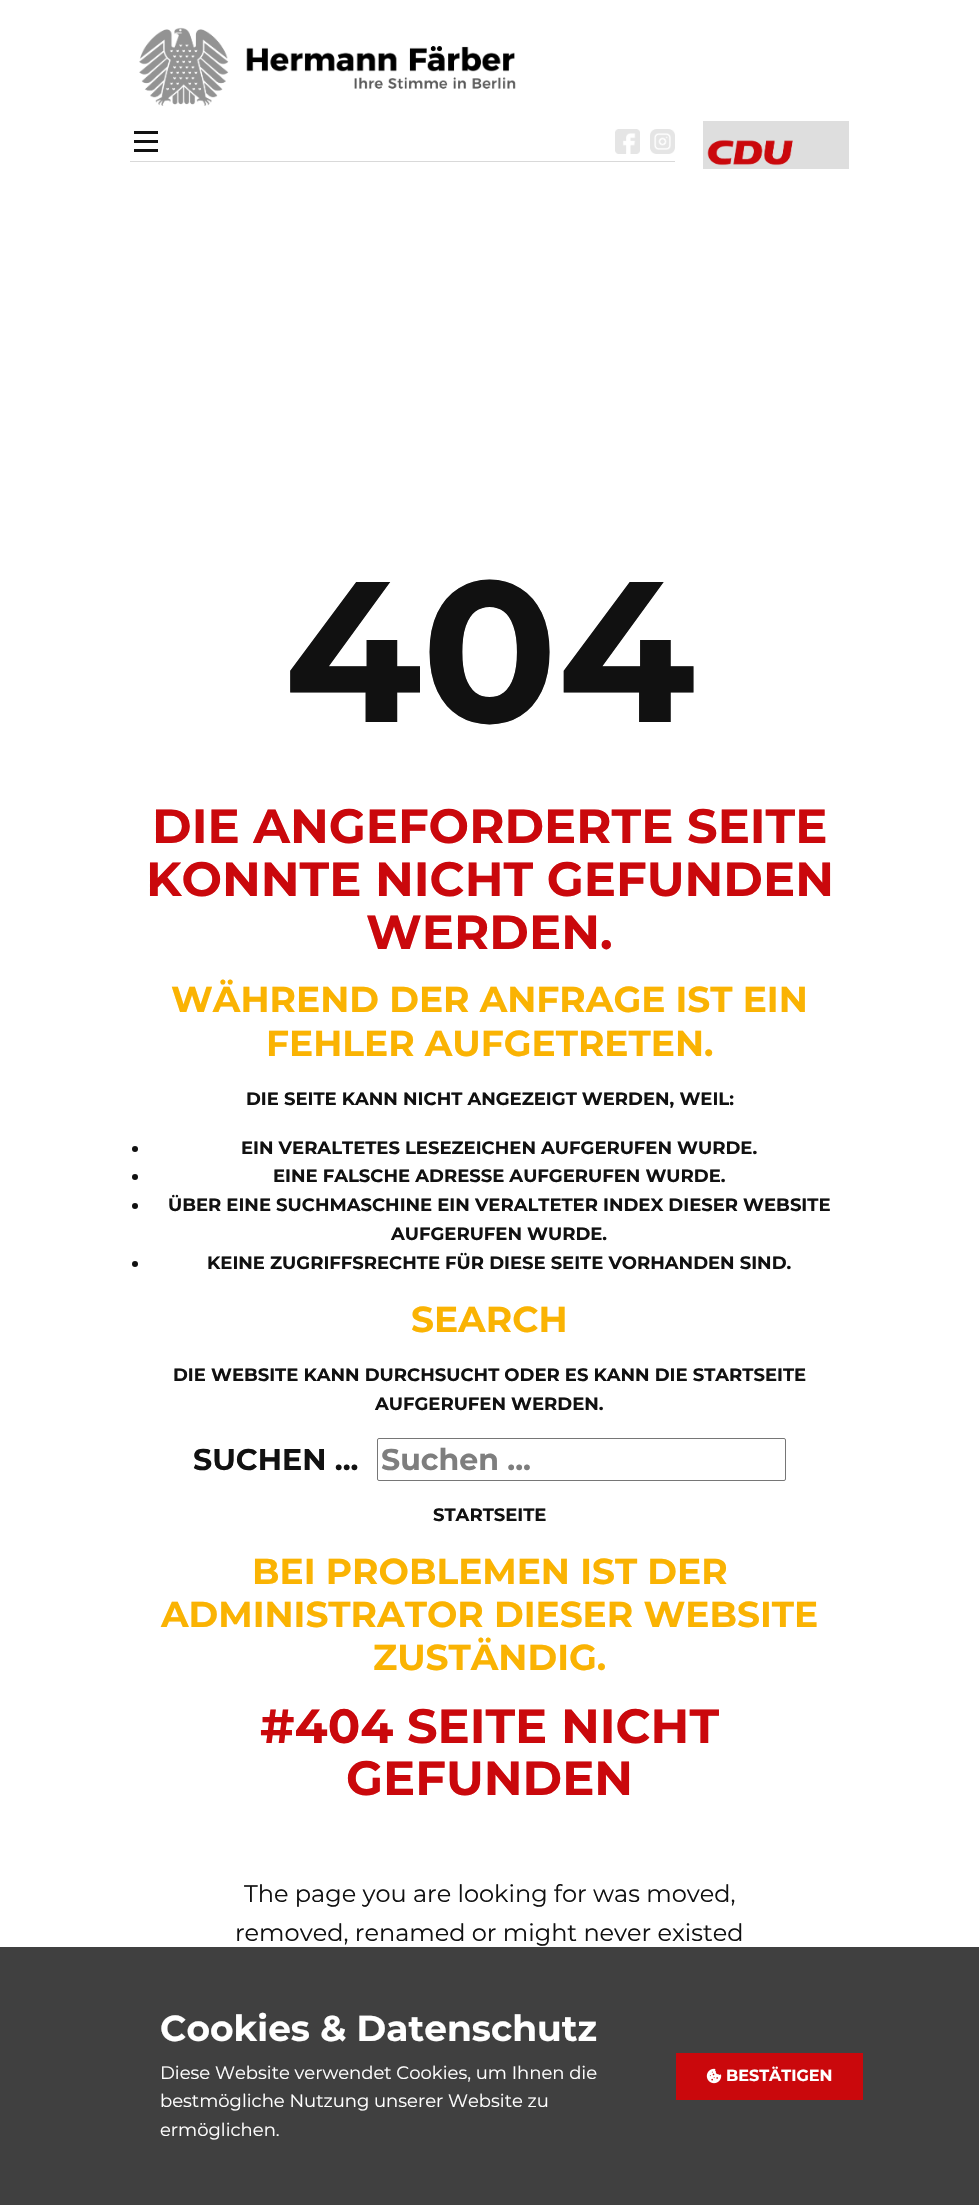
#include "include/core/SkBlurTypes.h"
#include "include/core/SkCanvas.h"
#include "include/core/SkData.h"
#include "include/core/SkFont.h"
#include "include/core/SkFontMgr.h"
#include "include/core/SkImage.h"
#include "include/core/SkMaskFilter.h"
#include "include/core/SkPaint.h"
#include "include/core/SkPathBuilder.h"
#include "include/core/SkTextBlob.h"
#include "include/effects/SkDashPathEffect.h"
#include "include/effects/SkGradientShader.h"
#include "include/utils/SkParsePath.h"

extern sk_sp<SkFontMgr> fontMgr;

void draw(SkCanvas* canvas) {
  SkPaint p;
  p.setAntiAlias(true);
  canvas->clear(SK_ColorWHITE);
  canvas->drawImageRect(SkImages::DeferredFromEncodedData(SkData::MakeFromFileName("images/1.png")), SkRect::MakeLTRB(139, 27, 516, 106), SkSamplingOptions());
  p.setColor(SkColorSetRGB(17, 17, 17));
  canvas->drawRect(SkRect::MakeLTRB(134, 131, 158, 134), p);
  canvas->drawRect(SkRect::MakeLTRB(134, 140, 158, 143), p);
  canvas->drawRect(SkRect::MakeLTRB(134, 149, 158, 152), p);
  canvas->drawImageRect(SkImages::DeferredFromEncodedData(SkData::MakeFromFileName("images/2.png")), SkRect::MakeLTRB(615, 129, 640, 154), SkSamplingOptions());
  canvas->drawImageRect(SkImages::DeferredFromEncodedData(SkData::MakeFromFileName("images/3.png")), SkRect::MakeLTRB(650, 129, 675, 154), SkSamplingOptions());
  p.setColor(SkColorSetRGB(217, 217, 217));
  canvas->drawRect(SkRect::MakeLTRB(130, 161, 675, 162), p);
  canvas->drawImageRect(SkImages::DeferredFromEncodedData(SkData::MakeFromFileName("images/4.png")), SkRect::MakeLTRB(703, 121, 849, 169), SkSamplingOptions());
  p.setColor(SkColorSetRGB(17, 17, 17));
  canvas->drawCircle(135, 1149, 3, p);
  canvas->drawCircle(135, 1177, 3, p);
  canvas->drawCircle(135, 1206, 3, p);
  canvas->drawCircle(135, 1264, 3, p);
  p.setStyle(SkPaint::kStroke_Style);
  p.setStrokeWidth(1);
  p.setColor(SkColorSetRGB(118, 118, 118));
  canvas->drawRoundRect(SkRect::MakeLTRB(377.5f, 1438.5f, 785.5f, 1480.5f), 1.5f, 1.5f, p);
  p.setStyle(SkPaint::kFill_Style);
  p.setColor(SkColorSetRGB(64, 64, 64));
  canvas->drawRect(SkRect::MakeLTRB(0, 1947, 979, 2205), p);
  p.setColor(SkColorSetRGB(202, 8, 12));
  canvas->drawRect(SkRect::MakeLTRB(676, 2053, 863, 2100), p);
  canvas->drawImageRect(SkImages::DeferredFromEncodedData(SkData::MakeFromFileName("images/5.png")), SkRect::MakeLTRB(706, 2068, 722, 2084), SkSamplingOptions());
  SkFont font1(fontMgr->matchFamilyStyle("Montserrat", SkFontStyle(100, SkFontStyle::kNormal_Width, SkFontStyle::kUpright_Slant)), 200);
  font1.setSubpixel(true);
  p.setColor(SkColorSetRGB(17, 17, 17));
  canvas->drawString("404", 284, 722, font1, p);
  SkFont font2(fontMgr->matchFamilyStyle("Montserrat", SkFontStyle(100, SkFontStyle::kNormal_Width, SkFontStyle::kUpright_Slant)), 48);
  font2.setSubpixel(true);
  p.setColor(SkColorSetRGB(202, 8, 12));
  canvas->drawString("DIE ANGEFORDERTE SEITE", 152, 843, font2, p);
  canvas->drawString("KONNTE NICHT GEFUNDEN", 146, 896, font2, p);
  canvas->drawString("WERDEN.", 366, 949, font2, p);
  SkFont font3(fontMgr->matchFamilyStyle("Montserrat", SkFontStyle(100, SkFontStyle::kNormal_Width, SkFontStyle::kUpright_Slant)), 36);
  font3.setSubpixel(true);
  p.setColor(SkColorSetRGB(250, 179, 3));
  canvas->drawString("WÄHREND DER ANFRAGE IST EIN", 171, 1012, font3, p);
  canvas->drawString("FEHLER AUFGETRETEN.", 266, 1056, font3, p);
  SkFont font4(fontMgr->matchFamilyStyle("Montserrat", SkFontStyle(100, SkFontStyle::kNormal_Width, SkFontStyle::kUpright_Slant)), 18);
  font4.setSubpixel(true);
  p.setColor(SkColorSetRGB(17, 17, 17));
  canvas->drawString("DIE SEITE KANN NICHT ANGEZEIGT WERDEN, WEIL:", 246, 1105, font4, p);
  canvas->drawString("EIN VERALTETES LESEZEICHEN AUFGERUFEN WURDE.", 241, 1154, font4, p);
  canvas->drawString("EINE FALSCHE ADRESSE AUFGERUFEN WURDE.", 273, 1182, font4, p);
  canvas->drawString("ÜBER EINE SUCHMASCHINE EIN VERALTETER INDEX DIESER WEBSITE", 168, 1211, font4, p);
  canvas->drawString("AUFGERUFEN WURDE.", 391, 1240, font4, p);
  canvas->drawString("KEINE ZUGRIFFSRECHTE FÜR DIESE SEITE VORHANDEN SIND.", 207, 1269, font4, p);
  p.setColor(SkColorSetRGB(250, 179, 3));
  canvas->drawString("SEARCH", 411, 1332, font3, p);
  p.setColor(SkColorSetRGB(17, 17, 17));
  canvas->drawString("DIE WEBSITE KANN DURCHSUCHT ODER ES KANN DIE STARTSEITE", 173, 1381, font4, p);
  canvas->drawString("AUFGERUFEN WERDEN.", 375, 1410, font4, p);
  SkFont font5(fontMgr->matchFamilyStyle("Montserrat", SkFontStyle(100, SkFontStyle::kNormal_Width, SkFontStyle::kUpright_Slant)), 30);
  font5.setSubpixel(true);
  canvas->drawString("SUCHEN ...", 193, 1470, font5, p);
  p.setColor(SkColorSetRGB(126, 126, 126));
  canvas->drawString("Suchen ...", 381, 1470, font5, p);
  p.setColor(SkColorSetRGB(17, 17, 17));
  canvas->drawString("STARTSEITE", 433, 1521, font4, p);
  p.setColor(SkColorSetRGB(250, 179, 3));
  canvas->drawString("BEI PROBLEMEN IST DER", 252, 1584, font3, p);
  canvas->drawString("ADMINISTRATOR DIESER WEBSITE", 161, 1627, font3, p);
  canvas->drawString("ZUSTÄNDIG.", 373, 1670, font3, p);
  p.setColor(SkColorSetRGB(202, 8, 12));
  canvas->drawString("#404 SEITE NICHT", 260, 1743, font2, p);
  canvas->drawString("GEFUNDEN", 346, 1795, font2, p);
  SkFont font6(fontMgr->matchFamilyStyle("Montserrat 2", SkFontStyle(100, SkFontStyle::kNormal_Width, SkFontStyle::kUpright_Slant)), 24);
  font6.setSubpixel(true);
  p.setColor(SkColorSetRGB(17, 17, 17));
  canvas->drawString("The page you are looking for was moved,", 244, 1902, font6, p);
  canvas->drawString("removed, renamed or might never existed", 235, 1941, font6, p);
  p.setColor(SK_ColorWHITE);
  canvas->drawString("Cookies & Datenschutz", 160, 2041, font3, p);
  SkFont font7(fontMgr->matchFamilyStyle("Montserrat 2", SkFontStyle(100, SkFontStyle::kNormal_Width, SkFontStyle::kUpright_Slant)), 18);
  font7.setSubpixel(true);
  canvas->drawString("Diese Website verwendet Cookies, um Ihnen die", 160, 2079, font7, p);
  canvas->drawString("bestmögliche Nutzung unserer Website zu", 160, 2107, font7, p);
  canvas->drawString("ermöglichen.", 160, 2136, font7, p);
  SkFont font8(fontMgr->matchFamilyStyle("Montserrat", SkFontStyle(100, SkFontStyle::kNormal_Width, SkFontStyle::kUpright_Slant)), 16);
  font8.setSubpixel(true);
  canvas->drawString("BESTÄTIGEN", 726, 2081, font8, p);
}
